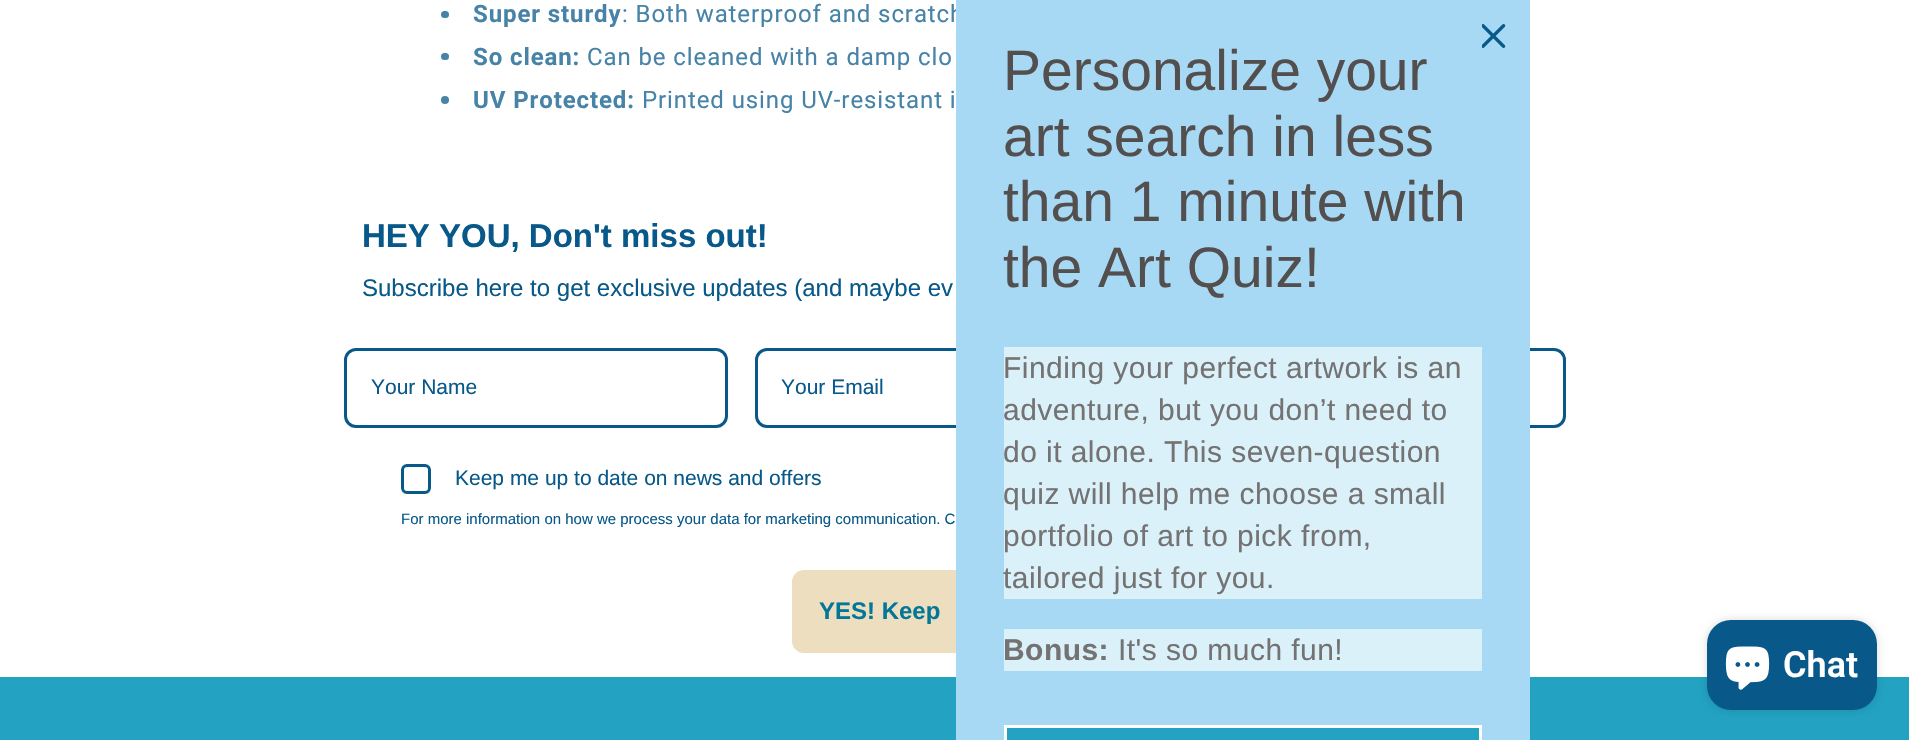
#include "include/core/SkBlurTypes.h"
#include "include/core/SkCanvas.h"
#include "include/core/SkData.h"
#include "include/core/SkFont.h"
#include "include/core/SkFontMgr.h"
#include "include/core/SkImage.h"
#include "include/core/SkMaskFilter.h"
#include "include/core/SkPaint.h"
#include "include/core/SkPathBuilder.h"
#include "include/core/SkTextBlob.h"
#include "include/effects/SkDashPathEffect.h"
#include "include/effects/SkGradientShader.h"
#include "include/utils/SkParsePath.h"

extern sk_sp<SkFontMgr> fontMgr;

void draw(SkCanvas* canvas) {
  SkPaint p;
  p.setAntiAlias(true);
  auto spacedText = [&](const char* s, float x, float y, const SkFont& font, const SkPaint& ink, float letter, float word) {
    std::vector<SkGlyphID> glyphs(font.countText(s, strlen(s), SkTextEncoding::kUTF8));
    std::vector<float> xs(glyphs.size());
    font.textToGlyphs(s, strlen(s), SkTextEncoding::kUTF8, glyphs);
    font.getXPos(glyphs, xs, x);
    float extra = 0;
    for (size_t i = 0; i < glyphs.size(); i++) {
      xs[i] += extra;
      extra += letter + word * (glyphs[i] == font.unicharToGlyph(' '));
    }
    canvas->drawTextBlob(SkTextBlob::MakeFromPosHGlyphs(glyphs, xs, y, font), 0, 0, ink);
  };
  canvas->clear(SK_ColorWHITE);
  p.setColor(SkColorSetRGB(70, 131, 167));
  canvas->drawRoundRect(SkRect::MakeLTRB(441, 11, 449, 18), 3.5f, 3.5f, p);
  canvas->drawRoundRect(SkRect::MakeLTRB(441, 53, 449, 60), 3.5f, 3.5f, p);
  canvas->drawCircle(445, 100, 4, p);
  p.setStyle(SkPaint::kStroke_Style);
  p.setStrokeWidth(3);
  p.setColor(SkColorSetRGB(8, 89, 138));
  canvas->drawRoundRect(SkRect::MakeLTRB(345.5f, 349.5f, 726.5f, 426.5f), 10.5f, 10.5f, p);
  canvas->drawRoundRect(SkRect::MakeLTRB(756.5f, 349.5f, 1144.5f, 426.5f), 10.5f, 10.5f, p);
  canvas->drawRoundRect(SkRect::MakeLTRB(1344.5f, 349.5f, 1564.5f, 426.5f), 10.5f, 10.5f, p);
  canvas->drawRoundRect(SkRect::MakeLTRB(402.5f, 465.5f, 429.5f, 492.5f), 4.5f, 4.5f, p);
  p.setStyle(SkPaint::kFill_Style);
  p.setColor(SkColorSetRGB(237, 222, 192));
  canvas->drawRoundRect(SkRect::MakeLTRB(793.5f, 571.5f, 1116.5f, 651.5f), 10.5f, 10.5f, p);
  p.setStyle(SkPaint::kStroke_Style);
  canvas->drawRoundRect(SkRect::MakeLTRB(793.5f, 571.5f, 1116.5f, 651.5f), 10.5f, 10.5f, p);
  p.setStyle(SkPaint::kFill_Style);
  p.setColor(SkColorSetRGB(35, 162, 194));
  canvas->drawRect(SkRect::MakeLTRB(0, 677, 1909, 740), p);
  p.setColor(SkColorSetARGB(38, 0, 0, 0));
  p.setMaskFilter(SkMaskFilter::MakeBlur(kNormal_SkBlurStyle, 4));
  canvas->drawRoundRect(SkRect::MakeLTRB(1707, 620, 1877, 710), 24, 24, p);
  p.setMaskFilter(nullptr);
  p.setColor(SkColorSetRGB(8, 89, 138));
  canvas->drawRoundRect(SkRect::MakeLTRB(1707, 620, 1877, 710), 24, 24, p);
  canvas->drawImageRect(SkImages::DeferredFromEncodedData(SkData::MakeFromFileName("images/2.png")), SkRect::MakeLTRB(1725, 646, 1770, 690), SkSamplingOptions());
  SkFont font1(fontMgr->matchFamilyStyle("Roboto", SkFontStyle::Bold()), 24);
  font1.setSubpixel(true);
  p.setColor(SkColorSetRGB(70, 131, 167));
  spacedText("Super sturdy", 473, 22, font1, p, 0.9f, 0);
  SkFont font2(fontMgr->matchFamilyStyle("Roboto", SkFontStyle::Normal()), 24);
  font2.setSubpixel(true);
  spacedText(": Both waterproof and scratch", 622, 22, font2, p, 0.9f, 0);
  spacedText("So clean:", 473, 65, font1, p, 0.9f, 0);
  spacedText("Can be cleaned with a damp clo", 587, 65, font2, p, 0.9f, 0);
  spacedText("UV Protected:", 473, 108, font1, p, 0.9f, 0);
  spacedText("Printed using UV-resistant i", 642, 108, font2, p, 0.9f, 0);
  p.setColor(SkColorSetRGB(168, 217, 244));
  canvas->drawRect(SkRect::MakeLTRB(956, 0, 1530, 740), p);
  canvas->drawImageRect(SkImages::DeferredFromEncodedData(SkData::MakeFromFileName("images/1.png")), SkRect::MakeLTRB(1482, 24, 1506, 48), SkSamplingOptions());
  SkFont font3(fontMgr->matchFamilyStyle("Liberation Sans", SkFontStyle::Normal()), 57);
  font3.setSubpixel(true);
  p.setColor(SkColorSetRGB(84, 79, 79));
  canvas->drawString("Personalize your", 1003, 90, font3, p);
  canvas->drawString("art search in less", 1003, 156, font3, p);
  canvas->drawString("than 1 minute with", 1003, 221, font3, p);
  canvas->drawString("the Art Quiz!", 1003, 287, font3, p);
  p.setColor(SkColorSetRGB(219, 241, 250));
  canvas->drawRect(SkRect::MakeLTRB(1004, 347, 1482, 599), p);
  SkFont font4(fontMgr->matchFamilyStyle("Liberation Sans", SkFontStyle::Normal()), 30);
  font4.setSubpixel(true);
  p.setColor(SkColorSetRGB(116, 114, 114));
  spacedText("Finding your perfect artwork is an", 1003, 378, font4, p, 0.45f, 0);
  spacedText("adventure, but you don’t need to", 1003, 420, font4, p, 0.45f, 0);
  spacedText("do it alone. This seven-question", 1003, 462, font4, p, 0.45f, 0);
  spacedText("quiz will help me choose a small", 1003, 504, font4, p, 0.45f, 0);
  spacedText("portfolio of art to pick from,", 1003, 546, font4, p, 0.45f, 0);
  spacedText("tailored just for you.", 1003, 588, font4, p, 0.45f, 0);
  p.setColor(SkColorSetRGB(219, 241, 250));
  canvas->drawRect(SkRect::MakeLTRB(1004, 629, 1482, 671), p);
  SkFont font5(fontMgr->matchFamilyStyle("Liberation Sans", SkFontStyle::Bold()), 30);
  font5.setSubpixel(true);
  p.setColor(SkColorSetRGB(116, 114, 114));
  spacedText("Bonus:", 1003, 660, font5, p, 0.45f, 0);
  spacedText("It's so much fun!", 1118, 660, font4, p, 0.45f, 0);
  p.setColor(SkColorSetRGB(35, 162, 194));
  canvas->drawRect(SkRect::MakeLTRB(1005.5f, 726.5f, 1480.5f, 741.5f), p);
  p.setStyle(SkPaint::kStroke_Style);
  p.setColor(SK_ColorWHITE);
  canvas->drawRect(SkRect::MakeLTRB(1005.5f, 726.5f, 1480.5f, 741.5f), p);
  SkFont font6(fontMgr->matchFamilyStyle("Liberation Sans", SkFontStyle::Bold()), 33);
  font6.setSubpixel(true);
  p.setStyle(SkPaint::kFill_Style);
  p.setColor(SkColorSetRGB(8, 89, 138));
  canvas->drawString("HEY YOU, Don't miss out!", 362, 247, font6, p);
  SkFont font7(fontMgr->matchFamilyStyle("Liberation Sans", SkFontStyle::Normal()), 24);
  font7.setSubpixel(true);
  canvas->drawString("Subscribe here to get exclusive updates (and maybe ev", 362, 296, font7, p);
  SkFont font8(fontMgr->matchFamilyStyle("Liberation Sans", SkFontStyle::Normal()), 21);
  font8.setSubpixel(true);
  canvas->drawString("Your Name", 371, 394, font8, p);
  canvas->drawString("Your Email", 781, 394, font8, p);
  canvas->drawString("Keep me up to date on news and offers", 455, 485, font8, p);
  SkFont font9(fontMgr->matchFamilyStyle("Liberation Sans", SkFontStyle::Normal()), 15);
  font9.setSubpixel(true);
  canvas->drawString("For more information on how we process your data for marketing communication. C", 401, 524, font9, p);
  SkFont font10(fontMgr->matchFamilyStyle("Liberation Sans", SkFontStyle::Bold()), 24);
  font10.setSubpixel(true);
  p.setColor(SkColorSetRGB(4, 118, 151));
  canvas->drawString("YES! Keep", 819, 619, font10, p);
  SkFont font11(fontMgr->matchFamilyStyle("Roboto", SkFontStyle(600, SkFontStyle::kNormal_Width, SkFontStyle::kUpright_Slant)), 36);
  font11.setSubpixel(true);
  p.setColor(SK_ColorWHITE);
  canvas->drawString("Chat", 1783, 677, font11, p);
}
